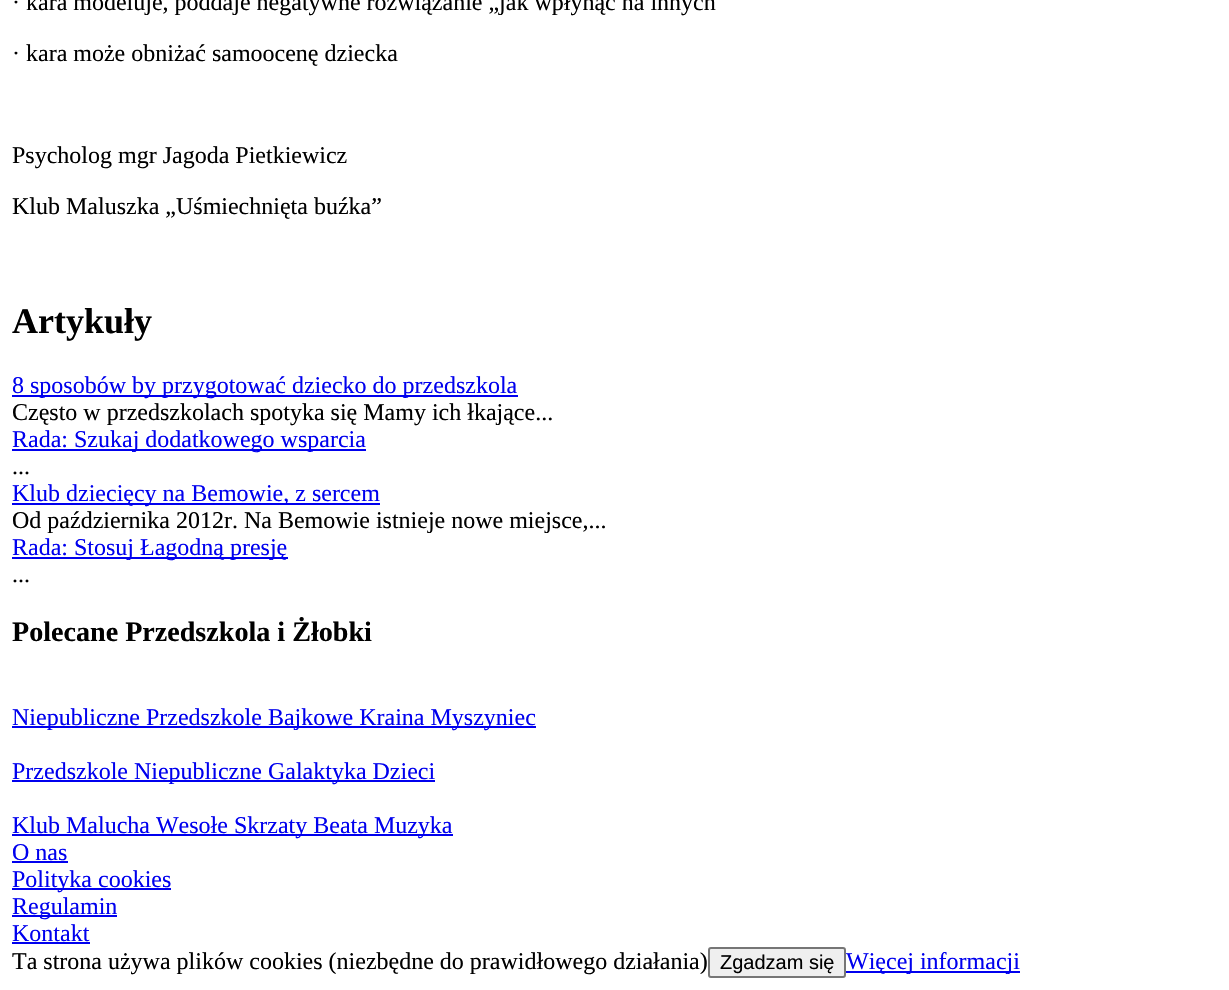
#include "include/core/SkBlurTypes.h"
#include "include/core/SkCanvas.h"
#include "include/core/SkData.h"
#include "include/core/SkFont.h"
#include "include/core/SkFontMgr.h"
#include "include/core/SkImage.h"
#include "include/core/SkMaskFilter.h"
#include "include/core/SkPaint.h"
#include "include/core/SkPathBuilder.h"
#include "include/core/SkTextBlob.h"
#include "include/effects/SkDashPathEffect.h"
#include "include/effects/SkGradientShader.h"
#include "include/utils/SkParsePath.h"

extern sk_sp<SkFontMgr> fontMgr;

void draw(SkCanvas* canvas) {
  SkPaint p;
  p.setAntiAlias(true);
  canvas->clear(SK_ColorWHITE);
  p.setColor(SkColorSetRGB(0, 0, 238));
  canvas->drawRect(SkRect::MakeLTRB(12, 395, 518, 397), p);
  canvas->drawRect(SkRect::MakeLTRB(12, 449, 366, 451), p);
  canvas->drawRect(SkRect::MakeLTRB(12, 503, 380, 505), p);
  canvas->drawRect(SkRect::MakeLTRB(12, 557, 288, 559), p);
  canvas->drawRect(SkRect::MakeLTRB(12, 726, 536, 728), p);
  canvas->drawRect(SkRect::MakeLTRB(12, 780, 435, 782), p);
  canvas->drawRect(SkRect::MakeLTRB(12, 834, 453, 836), p);
  canvas->drawRect(SkRect::MakeLTRB(12, 861, 68, 863), p);
  canvas->drawRect(SkRect::MakeLTRB(12, 888, 171, 890), p);
  canvas->drawRect(SkRect::MakeLTRB(12, 915, 117, 917), p);
  canvas->drawRect(SkRect::MakeLTRB(12, 942, 90, 944), p);
  p.setColor(SkColorSetRGB(239, 239, 239));
  canvas->drawRoundRect(SkRect::MakeLTRB(709, 948, 845, 977), 2, 2, p);
  p.setStyle(SkPaint::kStroke_Style);
  p.setStrokeWidth(2);
  p.setColor(SkColorSetRGB(118, 118, 118));
  canvas->drawRoundRect(SkRect::MakeLTRB(709, 948, 845, 977), 2, 2, p);
  p.setStyle(SkPaint::kFill_Style);
  p.setColor(SkColorSetRGB(0, 0, 238));
  canvas->drawRect(SkRect::MakeLTRB(846, 971, 1020, 973), p);
  SkFont font1(fontMgr->matchFamilyStyle("Liberation Serif", SkFontStyle::Normal()), 24);
  font1.setSubpixel(true);
  p.setColor(SK_ColorBLACK);
  canvas->drawString("· kara modeluje, poddaje negatywne rozwiązanie „jak wpłynąć na innych", 12, 10, font1, p);
  canvas->drawString("· kara może obniżać samoocenę dziecka", 12, 61, font1, p);
  canvas->drawString("Psycholog mgr Jagoda Pietkiewicz", 12, 163, font1, p);
  canvas->drawString("Klub Maluszka „Uśmiechnięta buźka”", 12, 214, font1, p);
  SkFont font2(fontMgr->matchFamilyStyle("Liberation Serif", SkFontStyle::Bold()), 36);
  font2.setSubpixel(true);
  canvas->drawString("Artykuły", 12, 333, font2, p);
  p.setColor(SkColorSetRGB(0, 0, 238));
  canvas->drawString("8 sposobów by przygotować dziecko do przedszkola", 12, 393, font1, p);
  p.setColor(SK_ColorBLACK);
  canvas->drawString("Często w przedszkolach spotyka się Mamy ich łkające...", 12, 420, font1, p);
  p.setColor(SkColorSetRGB(0, 0, 238));
  canvas->drawString("Rada: Szukaj dodatkowego wsparcia", 12, 447, font1, p);
  p.setColor(SK_ColorBLACK);
  canvas->drawString("...", 12, 474, font1, p);
  p.setColor(SkColorSetRGB(0, 0, 238));
  canvas->drawString("Klub dziecięcy na Bemowie, z sercem", 12, 501, font1, p);
  p.setColor(SK_ColorBLACK);
  canvas->drawString("Od października 2012r. Na Bemowie istnieje nowe miejsce,...", 12, 528, font1, p);
  p.setColor(SkColorSetRGB(0, 0, 238));
  canvas->drawString("Rada: Stosuj Łagodną presję", 12, 555, font1, p);
  p.setColor(SK_ColorBLACK);
  canvas->drawString("...", 12, 582, font1, p);
  SkFont font3(fontMgr->matchFamilyStyle("Liberation Serif", SkFontStyle::Bold()), 28.1f);
  font3.setSubpixel(true);
  canvas->drawString("Polecane Przedszkola i Żłobki", 12, 641, font3, p);
  p.setColor(SkColorSetRGB(0, 0, 238));
  canvas->drawString("Niepubliczne Przedszkole Bajkowe Kraina Myszyniec", 12, 725, font1, p);
  canvas->drawString("Przedszkole Niepubliczne Galaktyka Dzieci", 12, 779, font1, p);
  canvas->drawString("Klub Malucha Wesołe Skrzaty Beata Muzyka", 12, 833, font1, p);
  canvas->drawString("O nas", 12, 860, font1, p);
  canvas->drawString("Polityka cookies", 12, 887, font1, p);
  canvas->drawString("Regulamin", 12, 914, font1, p);
  canvas->drawString("Kontakt", 12, 941, font1, p);
  p.setColor(SK_ColorBLACK);
  canvas->drawString("Ta strona używa plików cookies (niezbędne do prawidłowego działania)", 12, 969, font1, p);
  SkFont font4(fontMgr->matchFamilyStyle("Liberation Sans", SkFontStyle::Normal()), 20);
  font4.setSubpixel(true);
  canvas->drawString("Zgadzam się", 720, 969, font4, p);
  p.setColor(SkColorSetRGB(0, 0, 238));
  canvas->drawString("Więcej informacji", 846, 969, font1, p);
}
